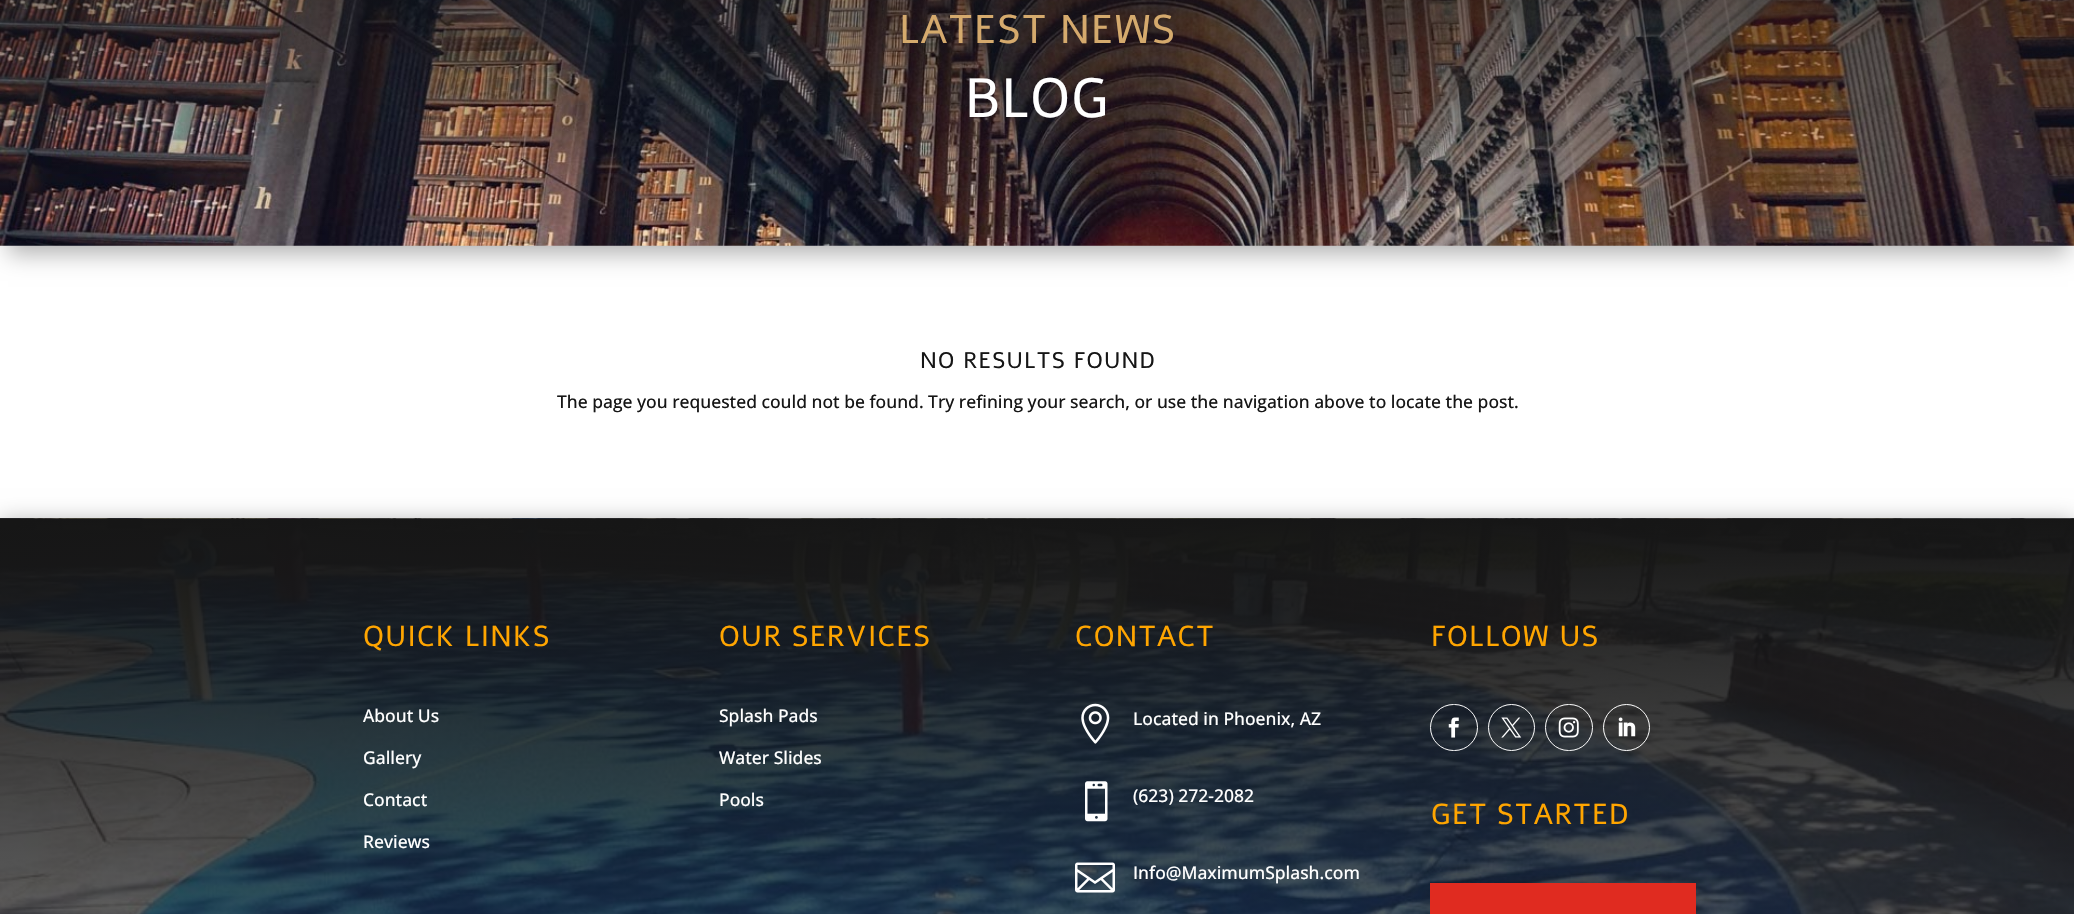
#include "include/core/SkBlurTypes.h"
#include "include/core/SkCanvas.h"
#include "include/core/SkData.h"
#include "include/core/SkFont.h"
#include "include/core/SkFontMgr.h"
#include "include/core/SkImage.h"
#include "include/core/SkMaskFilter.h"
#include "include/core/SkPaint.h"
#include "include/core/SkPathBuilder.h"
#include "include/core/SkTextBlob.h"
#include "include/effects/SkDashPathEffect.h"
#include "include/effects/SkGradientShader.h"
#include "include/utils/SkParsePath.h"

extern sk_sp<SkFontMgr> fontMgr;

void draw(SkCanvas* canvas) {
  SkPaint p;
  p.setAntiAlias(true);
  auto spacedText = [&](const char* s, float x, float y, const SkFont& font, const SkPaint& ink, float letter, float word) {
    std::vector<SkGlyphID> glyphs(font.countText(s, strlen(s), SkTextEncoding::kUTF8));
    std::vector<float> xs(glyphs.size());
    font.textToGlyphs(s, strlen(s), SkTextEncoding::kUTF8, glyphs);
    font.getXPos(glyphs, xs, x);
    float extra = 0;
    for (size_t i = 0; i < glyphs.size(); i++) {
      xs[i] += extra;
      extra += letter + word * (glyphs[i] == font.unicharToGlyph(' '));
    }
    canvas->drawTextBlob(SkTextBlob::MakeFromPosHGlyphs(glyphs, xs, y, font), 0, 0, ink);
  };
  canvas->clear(SK_ColorWHITE);
  p.setColor(SkColorSetARGB(77, 0, 0, 0));
  p.setMaskFilter(SkMaskFilter::MakeBlur(kNormal_SkBlurStyle, 11));
  canvas->drawRect(SkRect::MakeLTRB(8, -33, 2068, 254), p);
  p.setMaskFilter(nullptr);
  canvas->drawImageRect(SkImages::DeferredFromEncodedData(SkData::MakeFromFileName("images/1.png")), SkRect::MakeLTRB(0, 0, 2074, 246), SkSamplingOptions());
  p.setMaskFilter(SkMaskFilter::MakeBlur(kNormal_SkBlurStyle, 11));
  canvas->drawRect(SkRect::MakeLTRB(0, 521, 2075, 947), p);
  p.setMaskFilter(nullptr);
  canvas->drawImageRect(SkImages::DeferredFromEncodedData(SkData::MakeFromFileName("images/2.png")), SkRect::MakeLTRB(0, 518, 2074, 914), SkSamplingOptions());
  canvas->drawImageRect(SkImages::DeferredFromEncodedData(SkData::MakeFromFileName("images/3.png")), SkRect::MakeLTRB(1081, 703, 1110, 744), SkSamplingOptions());
  canvas->drawImageRect(SkImages::DeferredFromEncodedData(SkData::MakeFromFileName("images/4.png")), SkRect::MakeLTRB(1085, 781, 1108, 822), SkSamplingOptions());
  canvas->drawImageRect(SkImages::DeferredFromEncodedData(SkData::MakeFromFileName("images/5.png")), SkRect::MakeLTRB(1075, 862, 1115, 893), SkSamplingOptions());
  p.setStyle(SkPaint::kStroke_Style);
  p.setStrokeWidth(1);
  p.setColor(SK_ColorWHITE);
  canvas->drawRoundRect(SkRect::MakeLTRB(1430.5f, 704.5f, 1477.5f, 750.5f), 23, 23, p);
  canvas->drawImageRect(SkImages::DeferredFromEncodedData(SkData::MakeFromFileName("images/6.png")), SkRect::MakeLTRB(1448, 717, 1459, 738), SkSamplingOptions());
  canvas->drawCircle(1511.5f, 727.5f, 23, p);
  canvas->drawImageRect(SkImages::DeferredFromEncodedData(SkData::MakeFromFileName("images/7.png")), SkRect::MakeLTRB(1501, 717, 1522, 738), SkSamplingOptions());
  canvas->drawRoundRect(SkRect::MakeLTRB(1545.5f, 704.5f, 1592.5f, 750.5f), 23, 23, p);
  canvas->drawImageRect(SkImages::DeferredFromEncodedData(SkData::MakeFromFileName("images/8.png")), SkRect::MakeLTRB(1558, 717, 1579, 738), SkSamplingOptions());
  canvas->drawCircle(1626.5f, 727.5f, 23, p);
  canvas->drawImageRect(SkImages::DeferredFromEncodedData(SkData::MakeFromFileName("images/9.png")), SkRect::MakeLTRB(1618, 717, 1636, 737), SkSamplingOptions());
  p.setStyle(SkPaint::kFill_Style);
  p.setColor(SkColorSetARGB(51, 0, 0, 0));
  p.setMaskFilter(SkMaskFilter::MakeBlur(kNormal_SkBlurStyle, 11));
  canvas->drawRect(SkRect::MakeLTRB(1430, 885, 1696, 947), p);
  p.setMaskFilter(nullptr);
  p.setColor(SkColorSetRGB(224, 43, 32));
  canvas->drawRect(SkRect::MakeLTRB(1430, 883, 1696, 914), p);
  SkFont font1(fontMgr->matchFamilyStyle("Alef", SkFontStyle::Normal()), 40);
  font1.setSubpixel(true);
  p.setColor(SkColorSetRGB(213, 170, 109));
  spacedText("LATEST NEWS", 899, 43, font1, p, 1.25f, 0);
  SkFont font2(fontMgr->matchFamilyStyle("Alef", SkFontStyle::Normal()), 55);
  font2.setSubpixel(true);
  p.setColor(SK_ColorWHITE);
  spacedText("BLOG", 965, 117, font2, p, 1.25f, 0);
  SkFont font3(fontMgr->matchFamilyStyle("Alef", SkFontStyle::Normal()), 22.5f);
  font3.setSubpixel(true);
  p.setColor(SkColorSetRGB(22, 22, 22));
  spacedText("NO RESULTS FOUND", 920, 368, font3, p, 1.25f, 0);
  SkFont font4(fontMgr->matchFamilyStyle("Open Sans", SkFontStyle(500, SkFontStyle::kNormal_Width, SkFontStyle::kUpright_Slant)), 17.5f);
  font4.setSubpixel(true);
  canvas->drawString("The page you requested could not be found. Try refining your search, or use the navigation above to locate the post.", 557, 408, font4, p);
  SkFont font5(fontMgr->matchFamilyStyle("Alef", SkFontStyle::Normal()), 28.75f);
  font5.setSubpixel(true);
  p.setColor(SkColorSetRGB(255, 165, 0));
  spacedText("QUICK LINKS", 363, 646, font5, p, 1.25f, 0);
  p.setColor(SK_ColorWHITE);
  canvas->drawString("About Us", 363, 722, font4, p);
  canvas->drawString("Gallery", 363, 764, font4, p);
  canvas->drawString("Contact", 363, 806, font4, p);
  canvas->drawString("Reviews", 363, 848, font4, p);
  p.setColor(SkColorSetRGB(255, 165, 0));
  spacedText("OUR SERVICES", 719, 646, font5, p, 1.25f, 0);
  p.setColor(SK_ColorWHITE);
  canvas->drawString("Splash Pads", 719, 722, font4, p);
  canvas->drawString("Water Slides", 719, 764, font4, p);
  canvas->drawString("Pools", 719, 806, font4, p);
  p.setColor(SkColorSetRGB(255, 165, 0));
  spacedText("CONTACT", 1075, 646, font5, p, 1.25f, 0);
  p.setColor(SK_ColorWHITE);
  canvas->drawString("Located in Phoenix, AZ", 1133, 725, font4, p);
  canvas->drawString("(623) 272-2082", 1133, 802, font4, p);
  canvas->drawString("Info@MaximumSplash.com", 1133, 879, font4, p);
  p.setColor(SkColorSetRGB(255, 165, 0));
  spacedText("FOLLOW US", 1431, 646, font5, p, 1.25f, 0);
  spacedText("GET STARTED", 1431, 824, font5, p, 1.25f, 0);
}
